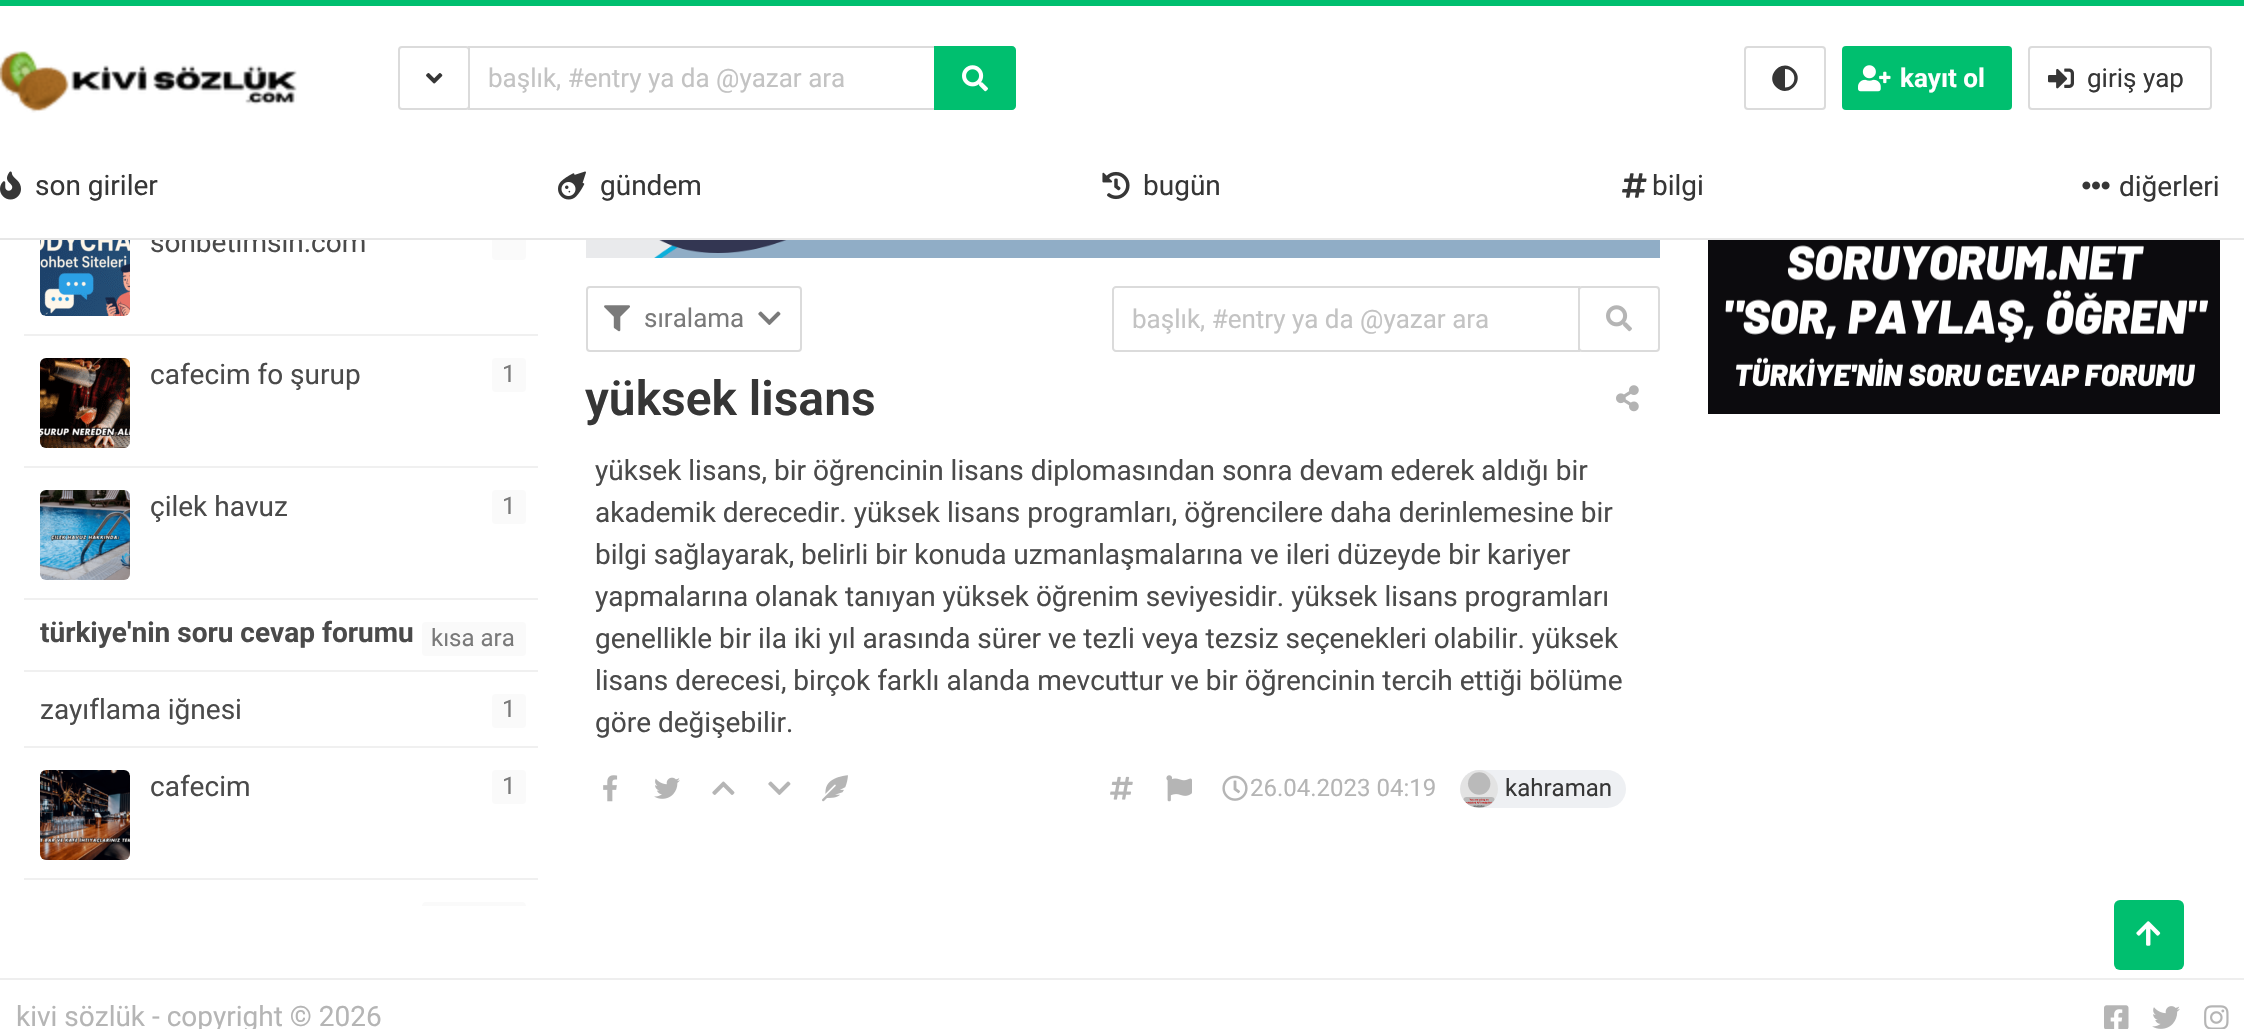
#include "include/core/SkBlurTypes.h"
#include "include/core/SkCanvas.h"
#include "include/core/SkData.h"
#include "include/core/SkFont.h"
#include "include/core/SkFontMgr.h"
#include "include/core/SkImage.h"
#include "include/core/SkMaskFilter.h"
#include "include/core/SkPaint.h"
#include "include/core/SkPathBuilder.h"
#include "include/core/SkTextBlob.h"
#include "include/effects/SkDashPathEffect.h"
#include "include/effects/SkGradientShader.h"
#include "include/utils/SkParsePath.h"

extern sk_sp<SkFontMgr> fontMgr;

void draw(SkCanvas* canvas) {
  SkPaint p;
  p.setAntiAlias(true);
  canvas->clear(SK_ColorWHITE);
  p.setColor(SkColorSetRGB(0, 191, 111));
  canvas->drawRect(SkRect::MakeLTRB(0, 0, 2244, 6), p);
  canvas->drawImageRect(SkImages::DeferredFromEncodedData(SkData::MakeFromFileName("images/1.png")), SkRect::MakeLTRB(0, 51, 297, 113), SkSamplingOptions());
  p.setStyle(SkPaint::kStroke_Style);
  p.setStrokeWidth(2);
  p.setColor(SkColorSetRGB(219, 219, 219));
  canvas->drawRoundRect(SkRect::MakeLTRB(399, 47, 469, 109), 3, 3, p);
  canvas->drawImageRect(SkImages::DeferredFromEncodedData(SkData::MakeFromFileName("images/2.png")), SkRect::MakeLTRB(426, 73, 443, 84), SkSamplingOptions());
  canvas->drawRect(SkRect::MakeLTRB(469, 47, 935, 109), p);
  p.setStyle(SkPaint::kFill_Style);
  p.setColor(SkColorSetRGB(0, 191, 111));
  canvas->drawPath(SkPathBuilder().moveTo(934, 46).lineTo(1012, 46).cubicTo(1014, 46, 1016, 48, 1016, 50).lineTo(1016, 106).cubicTo(1016, 108, 1014, 110, 1012, 110).lineTo(934, 110).close().detach(), p);
  canvas->drawImageRect(SkImages::DeferredFromEncodedData(SkData::MakeFromFileName("images/3.png")), SkRect::MakeLTRB(962, 65, 988, 92), SkSamplingOptions());
  p.setStyle(SkPaint::kStroke_Style);
  p.setColor(SkColorSetRGB(219, 219, 219));
  canvas->drawRoundRect(SkRect::MakeLTRB(1745, 47, 1825, 109), 3, 3, p);
  p.setStyle(SkPaint::kFill_Style);
  p.setColor(SkColorSetRGB(54, 54, 54));
  canvas->drawPath(SkPathBuilder().moveTo(1776, 87).cubicTo(1764.5f, 75.5f, 1782, 57.5f, 1794, 69.5f).cubicTo(1805.5f, 81, 1788, 99, 1776, 87).close().moveTo(1785, 87.5f).cubicTo(1797.5f, 87.5f, 1797.5f, 69, 1785, 69).close().detach(), p);
  p.setColor(SkColorSetRGB(0, 191, 111));
  canvas->drawRoundRect(SkRect::MakeLTRB(1842, 46, 2012, 110), 4, 4, p);
  canvas->drawImageRect(SkImages::DeferredFromEncodedData(SkData::MakeFromFileName("images/4.png")), SkRect::MakeLTRB(1858, 65, 1891, 92), SkSamplingOptions());
  p.setStyle(SkPaint::kStroke_Style);
  p.setColor(SkColorSetRGB(219, 219, 219));
  canvas->drawRoundRect(SkRect::MakeLTRB(2029, 47, 2211, 109), 3, 3, p);
  canvas->drawImageRect(SkImages::DeferredFromEncodedData(SkData::MakeFromFileName("images/5.png")), SkRect::MakeLTRB(2048, 68, 2074, 89), SkSamplingOptions());
  canvas->drawImageRect(SkImages::DeferredFromEncodedData(SkData::MakeFromFileName("images/6.png")), SkRect::MakeLTRB(0, 171, 21, 200), SkSamplingOptions());
  canvas->drawImageRect(SkImages::DeferredFromEncodedData(SkData::MakeFromFileName("images/7.png")), SkRect::MakeLTRB(558, 171, 586, 200), SkSamplingOptions());
  canvas->drawImageRect(SkImages::DeferredFromEncodedData(SkData::MakeFromFileName("images/8.png")), SkRect::MakeLTRB(1102, 171, 1130, 200), SkSamplingOptions());
  canvas->drawImageRect(SkImages::DeferredFromEncodedData(SkData::MakeFromFileName("images/9.png")), SkRect::MakeLTRB(1622, 173, 1647, 198), SkSamplingOptions());
  canvas->drawImageRect(SkImages::DeferredFromEncodedData(SkData::MakeFromFileName("images/10.png")), SkRect::MakeLTRB(2082, 181, 2110, 190), SkSamplingOptions());
  p.setStyle(SkPaint::kFill_Style);
  p.setColor(SkColorSetRGB(238, 238, 238));
  canvas->drawRect(SkRect::MakeLTRB(0, 978, 2244, 980), p);
  canvas->drawImageRect(SkImages::DeferredFromEncodedData(SkData::MakeFromFileName("images/11.png")), SkRect::MakeLTRB(40, 240, 130, 316), SkSamplingOptions());
  p.setColor(SkColorSetRGB(250, 250, 250));
  canvas->drawRoundRect(SkRect::MakeLTRB(492, 226, 526, 260), 4, 4, p);
  p.setColor(SkColorSetRGB(240, 240, 240));
  canvas->drawRect(SkRect::MakeLTRB(24, 334, 538, 336), p);
  canvas->drawImageRect(SkImages::DeferredFromEncodedData(SkData::MakeFromFileName("images/12.png")), SkRect::MakeLTRB(40, 358, 130, 448), SkSamplingOptions());
  p.setColor(SkColorSetRGB(250, 250, 250));
  canvas->drawRoundRect(SkRect::MakeLTRB(492, 358, 526, 392), 4, 4, p);
  p.setColor(SkColorSetRGB(240, 240, 240));
  canvas->drawRect(SkRect::MakeLTRB(24, 466, 538, 468), p);
  canvas->drawImageRect(SkImages::DeferredFromEncodedData(SkData::MakeFromFileName("images/13.png")), SkRect::MakeLTRB(40, 490, 130, 580), SkSamplingOptions());
  p.setColor(SkColorSetRGB(250, 250, 250));
  canvas->drawRoundRect(SkRect::MakeLTRB(492, 490, 526, 524), 4, 4, p);
  p.setColor(SkColorSetRGB(240, 240, 240));
  canvas->drawRect(SkRect::MakeLTRB(24, 598, 538, 600), p);
  p.setColor(SkColorSetRGB(250, 250, 250));
  canvas->drawRoundRect(SkRect::MakeLTRB(422, 622, 526, 656), 4, 4, p);
  p.setColor(SkColorSetRGB(240, 240, 240));
  canvas->drawRect(SkRect::MakeLTRB(24, 670, 538, 672), p);
  p.setColor(SkColorSetRGB(250, 250, 250));
  canvas->drawRoundRect(SkRect::MakeLTRB(492, 694, 526, 728), 4, 4, p);
  p.setColor(SkColorSetRGB(240, 240, 240));
  canvas->drawRect(SkRect::MakeLTRB(24, 746, 538, 748), p);
  canvas->drawImageRect(SkImages::DeferredFromEncodedData(SkData::MakeFromFileName("images/14.png")), SkRect::MakeLTRB(40, 770, 130, 860), SkSamplingOptions());
  p.setColor(SkColorSetRGB(250, 250, 250));
  canvas->drawRoundRect(SkRect::MakeLTRB(492, 770, 526, 804), 4, 4, p);
  p.setColor(SkColorSetRGB(240, 240, 240));
  canvas->drawRect(SkRect::MakeLTRB(24, 878, 538, 880), p);
  p.setColor(SkColorSetRGB(250, 250, 250));
  canvas->drawPath(SkPathBuilder().moveTo(426, 902).lineTo(522, 902).cubicTo(524, 902, 526, 904, 526, 906).lineTo(422, 906).cubicTo(422, 904, 424, 902, 426, 902).close().detach(), p);
  canvas->drawImageRect(SkImages::DeferredFromEncodedData(SkData::MakeFromFileName("images/15.png")), SkRect::MakeLTRB(586, 240, 1660, 258), SkSamplingOptions());
  p.setStyle(SkPaint::kStroke_Style);
  p.setColor(SkColorSetRGB(219, 219, 219));
  canvas->drawRoundRect(SkRect::MakeLTRB(587, 287, 801, 351), 3, 3, p);
  canvas->drawImageRect(SkImages::DeferredFromEncodedData(SkData::MakeFromFileName("images/16.png")), SkRect::MakeLTRB(604, 305, 630, 332), SkSamplingOptions());
  canvas->drawImageRect(SkImages::DeferredFromEncodedData(SkData::MakeFromFileName("images/17.png")), SkRect::MakeLTRB(758, 311, 781, 325), SkSamplingOptions());
  canvas->drawPath(SkPathBuilder().moveTo(1116, 287).lineTo(1579, 287).lineTo(1579, 351).lineTo(1116, 351).cubicTo(1114.5f, 351, 1113, 349.5f, 1113, 348).lineTo(1113, 290).cubicTo(1113, 288.5f, 1114.5f, 287, 1116, 287).close().detach(), p);
  p.setStyle(SkPaint::kFill_Style);
  p.setColor(SK_ColorWHITE);
  canvas->drawRoundRect(SkRect::MakeLTRB(1579, 287, 1659, 351), 3, 3, p);
  p.setStyle(SkPaint::kStroke_Style);
  p.setColor(SkColorSetRGB(219, 219, 219));
  canvas->drawRoundRect(SkRect::MakeLTRB(1579, 287, 1659, 351), 3, 3, p);
  canvas->drawImageRect(SkImages::DeferredFromEncodedData(SkData::MakeFromFileName("images/18.png")), SkRect::MakeLTRB(1606, 305, 1632, 332), SkSamplingOptions());
  canvas->drawImageRect(SkImages::DeferredFromEncodedData(SkData::MakeFromFileName("images/19.png")), SkRect::MakeLTRB(1616, 385, 1639, 412), SkSamplingOptions());
  canvas->drawImageRect(SkImages::DeferredFromEncodedData(SkData::MakeFromFileName("images/20.png")), SkRect::MakeLTRB(603, 775, 618, 802), SkSamplingOptions());
  canvas->drawImageRect(SkImages::DeferredFromEncodedData(SkData::MakeFromFileName("images/21.png")), SkRect::MakeLTRB(654, 777, 680, 799), SkSamplingOptions());
  canvas->drawImageRect(SkImages::DeferredFromEncodedData(SkData::MakeFromFileName("images/22.png")), SkRect::MakeLTRB(712, 781, 735, 795), SkSamplingOptions());
  canvas->drawImageRect(SkImages::DeferredFromEncodedData(SkData::MakeFromFileName("images/23.png")), SkRect::MakeLTRB(768, 781, 791, 795), SkSamplingOptions());
  canvas->drawImageRect(SkImages::DeferredFromEncodedData(SkData::MakeFromFileName("images/24.png")), SkRect::MakeLTRB(822, 775, 848, 802), SkSamplingOptions());
  canvas->drawImageRect(SkImages::DeferredFromEncodedData(SkData::MakeFromFileName("images/25.png")), SkRect::MakeLTRB(1110, 776, 1133, 800), SkSamplingOptions());
  canvas->drawImageRect(SkImages::DeferredFromEncodedData(SkData::MakeFromFileName("images/26.png")), SkRect::MakeLTRB(1166, 775, 1192, 802), SkSamplingOptions());
  canvas->drawImageRect(SkImages::DeferredFromEncodedData(SkData::MakeFromFileName("images/27.png")), SkRect::MakeLTRB(1222, 775, 1248, 801), SkSamplingOptions());
  p.setStyle(SkPaint::kFill_Style);
  p.setColor(SkColorSetRGB(238, 240, 243));
  canvas->drawRoundRect(SkRect::MakeLTRB(1460, 770, 1626, 808), 19, 19, p);
  canvas->drawImageRect(SkImages::DeferredFromEncodedData(SkData::MakeFromFileName("images/28.png")), SkRect::MakeLTRB(1460, 770, 1498, 808), SkSamplingOptions());
  canvas->drawImageRect(SkImages::DeferredFromEncodedData(SkData::MakeFromFileName("images/29.png")), SkRect::MakeLTRB(1708, 240, 2220, 414), SkSamplingOptions());
  p.setColor(SkColorSetRGB(0, 191, 111));
  canvas->drawRoundRect(SkRect::MakeLTRB(2114, 900, 2184, 970), 6, 6, p);
  canvas->drawImageRect(SkImages::DeferredFromEncodedData(SkData::MakeFromFileName("images/30.png")), SkRect::MakeLTRB(2136, 921, 2161, 946), SkSamplingOptions());
  canvas->drawImageRect(SkImages::DeferredFromEncodedData(SkData::MakeFromFileName("images/31.png")), SkRect::MakeLTRB(2104, 1005, 2129, 1029), SkSamplingOptions());
  canvas->drawImageRect(SkImages::DeferredFromEncodedData(SkData::MakeFromFileName("images/32.png")), SkRect::MakeLTRB(2152, 1006, 2180, 1029), SkSamplingOptions());
  canvas->drawImageRect(SkImages::DeferredFromEncodedData(SkData::MakeFromFileName("images/33.png")), SkRect::MakeLTRB(2204, 1005, 2229, 1029), SkSamplingOptions());
  SkFont font1(fontMgr->matchFamilyStyle("Roboto", SkFontStyle::Normal()), 26);
  font1.setSubpixel(true);
  p.setColor(SkColorSetRGB(195, 195, 195));
  canvas->drawString("başlık, #entry ya da @yazar ara", 488, 87, font1, p);
  SkFont font2(fontMgr->matchFamilyStyle("Roboto", SkFontStyle::Bold()), 26);
  font2.setSubpixel(true);
  p.setColor(SK_ColorWHITE);
  canvas->drawString("kayıt ol", 1900, 87, font2, p);
  p.setColor(SkColorSetRGB(54, 54, 54));
  canvas->drawString("giriş yap", 2087, 87, font1, p);
  SkFont font3(fontMgr->matchFamilyStyle("Roboto", SkFontStyle::Normal()), 28);
  font3.setSubpixel(true);
  canvas->drawString("son giriler", 35, 195, font3, p);
  canvas->drawString("gündem", 600, 195, font3, p);
  canvas->drawString("bugün", 1143, 195, font3, p);
  canvas->drawString("bilgi", 1652, 195, font3, p);
  canvas->drawString("diğerleri", 2119, 196, font3, p);
  p.setColor(SkColorSetRGB(74, 74, 74));
  canvas->drawString("sohbetimsin.com", 150, 252, font3, p);
  p.setColor(SkColorSetRGB(231, 231, 231));
  canvas->drawRect(SkRect::MakeLTRB(0, 238, 2244, 240), p);
  p.setColor(SK_ColorWHITE);
  canvas->drawRect(SkRect::MakeLTRB(153, 226, 526, 238), p);
  p.setColor(SkColorSetRGB(74, 74, 74));
  canvas->drawString("cafecim fo şurup", 150, 384, font3, p);
  SkFont font4(fontMgr->matchFamilyStyle("Roboto", SkFontStyle::Normal()), 24);
  font4.setSubpixel(true);
  p.setColor(SkColorSetRGB(122, 122, 122));
  canvas->drawString("1", 502, 382, font4, p);
  p.setColor(SkColorSetRGB(74, 74, 74));
  canvas->drawString("çilek havuz", 150, 516, font3, p);
  p.setColor(SkColorSetRGB(122, 122, 122));
  canvas->drawString("1", 502, 514, font4, p);
  SkFont font5(fontMgr->matchFamilyStyle("Roboto", SkFontStyle::Bold()), 28);
  font5.setSubpixel(true);
  p.setColor(SkColorSetRGB(74, 74, 74));
  canvas->drawString("türkiye'nin soru cevap forumu", 40, 642, font5, p);
  p.setColor(SkColorSetRGB(122, 122, 122));
  canvas->drawString("kısa ara", 431, 646, font4, p);
  p.setColor(SkColorSetRGB(74, 74, 74));
  canvas->drawString("zayıflama iğnesi", 40, 719, font3, p);
  p.setColor(SkColorSetRGB(122, 122, 122));
  canvas->drawString("1", 502, 717, font4, p);
  p.setColor(SkColorSetRGB(74, 74, 74));
  canvas->drawString("cafecim", 150, 796, font3, p);
  p.setColor(SkColorSetRGB(122, 122, 122));
  canvas->drawString("1", 502, 794, font4, p);
  canvas->drawString("sıralama", 644, 327, font1, p);
  p.setColor(SkColorSetRGB(195, 195, 195));
  canvas->drawString("başlık, #entry ya da @yazar ara", 1132, 328, font1, p);
  SkFont font6(fontMgr->matchFamilyStyle("Roboto", SkFontStyle(600, SkFontStyle::kNormal_Width, SkFontStyle::kUpright_Slant)), 48);
  font6.setSubpixel(true);
  p.setColor(SkColorSetRGB(54, 54, 54));
  canvas->drawString("yüksek lisans", 585, 415, font6, p);
  p.setColor(SkColorSetRGB(74, 74, 74));
  canvas->drawString("yüksek lisans, bir öğrencinin lisans diplomasından sonra devam ederek aldığı bir", 595, 480, font3, p);
  canvas->drawString("akademik derecedir. yüksek lisans programları, öğrencilere daha derinlemesine bir", 595, 522, font3, p);
  canvas->drawString("bilgi sağlayarak, belirli bir konuda uzmanlaşmalarına ve ileri düzeyde bir kariyer", 595, 564, font3, p);
  canvas->drawString("yapmalarına olanak tanıyan yüksek öğrenim seviyesidir. yüksek lisans programları", 595, 606, font3, p);
  canvas->drawString("genellikle bir ila iki yıl arasında sürer ve tezli veya tezsiz seçenekleri olabilir. yüksek", 595, 648, font3, p);
  canvas->drawString("lisans derecesi, birçok farklı alanda mevcuttur ve bir öğrencinin tercih ettiği bölüme", 595, 690, font3, p);
  canvas->drawString("göre değişebilir.", 595, 732, font3, p);
  p.setColor(SkColorSetRGB(181, 181, 181));
  canvas->drawString("26.04.2023 04:19", 1250, 796, font4, p);
  p.setColor(SkColorSetRGB(54, 54, 54));
  canvas->drawString("kahraman", 1505, 796, font4, p);
  p.setColor(SkColorSetRGB(181, 181, 181));
  canvas->drawString("kivi sözlük - copyright © 2026", 16, 1026, font3, p);
}
